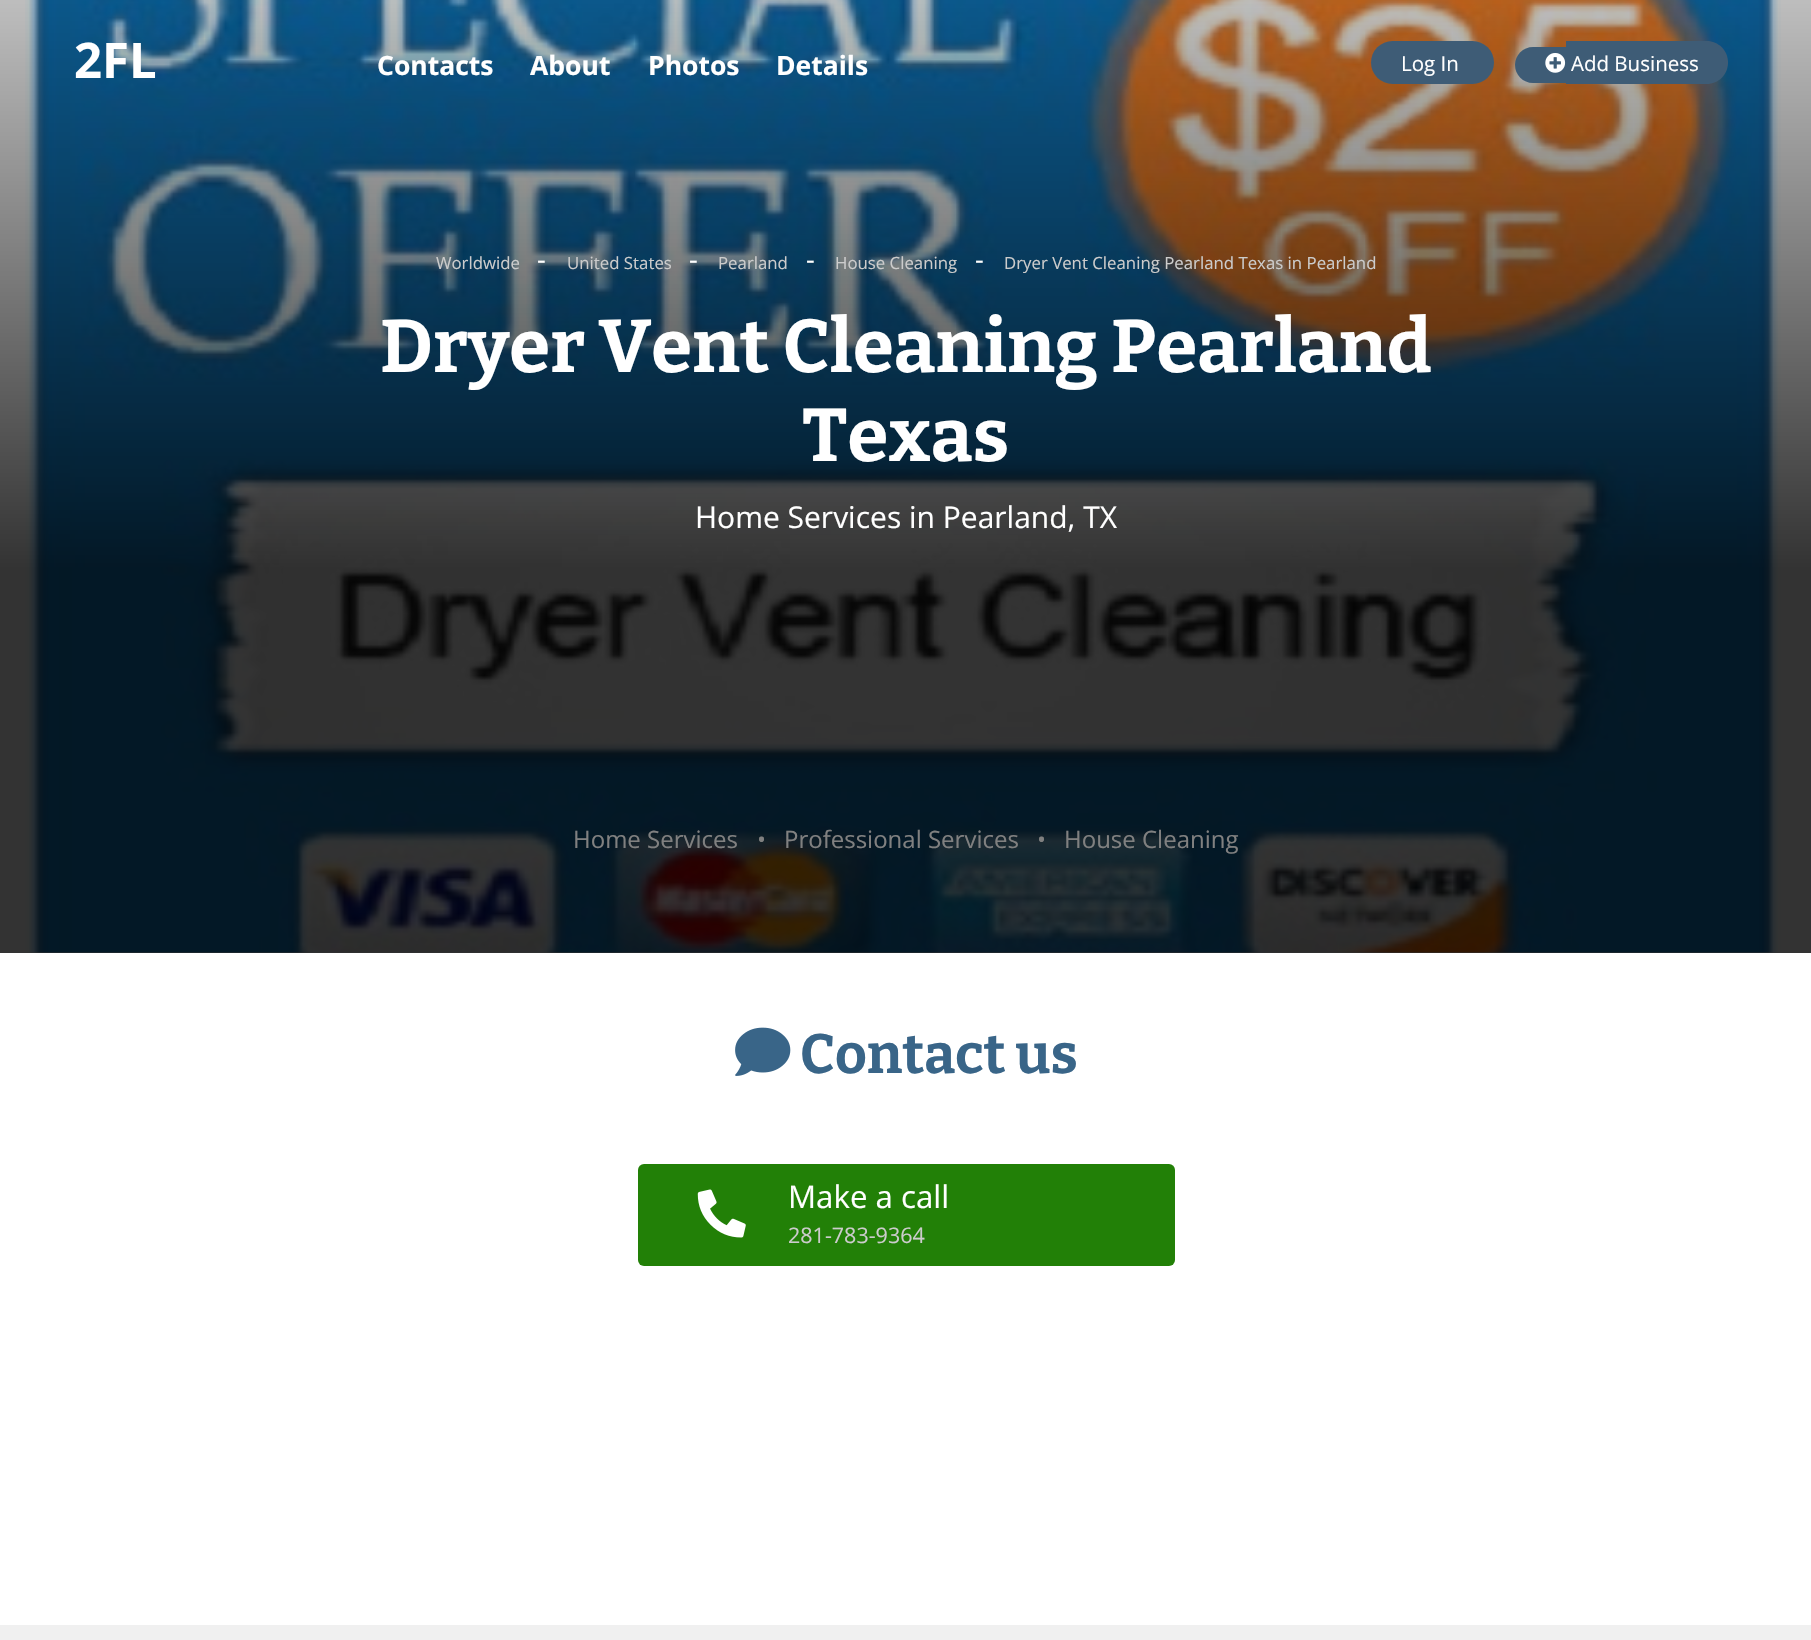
#include "include/core/SkBlurTypes.h"
#include "include/core/SkCanvas.h"
#include "include/core/SkData.h"
#include "include/core/SkFont.h"
#include "include/core/SkFontMgr.h"
#include "include/core/SkImage.h"
#include "include/core/SkMaskFilter.h"
#include "include/core/SkPaint.h"
#include "include/core/SkPathBuilder.h"
#include "include/core/SkTextBlob.h"
#include "include/effects/SkDashPathEffect.h"
#include "include/effects/SkGradientShader.h"
#include "include/utils/SkParsePath.h"

extern sk_sp<SkFontMgr> fontMgr;

void draw(SkCanvas* canvas) {
  SkPaint p;
  p.setAntiAlias(true);
  canvas->clear(SK_ColorWHITE);
  canvas->drawImageRect(SkImages::DeferredFromEncodedData(SkData::MakeFromFileName("images/2.png")), SkRect::MakeLTRB(25, 0, 1781, 953), SkSamplingOptions());
  {
    const SkColor colors[] = {SkColorSetARGB(64, 0, 0, 0), SkColorSetARGB(204, 0, 0, 0), SkColorSetARGB(204, 0, 0, 0)};
    const float stops[] = {0, 0.6f, 1};
    const SkPoint ends[] = {{906, -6}, {906, 953}};
    p.setShader(SkGradientShader::MakeLinear(ends, colors, stops, 3, SkTileMode::kClamp));
    p.setAlpha(255);
  }
  canvas->drawRect(SkRect::MakeLTRB(0, 0, 1811, 953), p);
  p.setShader(nullptr);
  p.setColor(SkColorSetRGB(62, 92, 118));
  canvas->drawRoundRect(SkRect::MakeLTRB(1371, 41, 1494, 84), 21.5f, 21.5f, p);
  canvas->drawPath(SkPathBuilder().moveTo(1533, 47).lineTo(1566, 47).lineTo(1566, 83).lineTo(1533, 83).cubicTo(1523, 83, 1515, 75, 1515, 65).cubicTo(1515, 55, 1523, 47, 1533, 47).close().detach(), p);
  canvas->drawPath(SkPathBuilder().moveTo(1566, 41).lineTo(1706.5f, 41).cubicTo(1718.5f, 41, 1728, 50.5f, 1728, 62.5f).cubicTo(1728, 74.5f, 1718.5f, 84, 1706.5f, 84).lineTo(1566, 84).close().detach(), p);
  canvas->drawImageRect(SkImages::DeferredFromEncodedData(SkData::MakeFromFileName("images/1.png")), SkRect::MakeLTRB(1545, 53, 1566, 73), SkSamplingOptions());
  canvas->drawImageRect(SkImages::DeferredFromEncodedData(SkData::MakeFromFileName("images/3.png")), SkRect::MakeLTRB(735, 1027, 791, 1076), SkSamplingOptions());
  p.setColor(SkColorSetRGB(34, 128, 7));
  canvas->drawRoundRect(SkRect::MakeLTRB(638, 1164, 1175, 1266), 6, 6, p);
  canvas->drawImageRect(SkImages::DeferredFromEncodedData(SkData::MakeFromFileName("images/4.png")), SkRect::MakeLTRB(697, 1189, 746, 1238), SkSamplingOptions());
  p.setColor(SkColorSetRGB(240, 240, 240));
  canvas->drawRect(SkRect::MakeLTRB(0, 1625, 1811, 1640), p);
  SkFont font1(fontMgr->matchFamilyStyle("Open Sans", SkFontStyle::Bold()), 49);
  font1.setSubpixel(true);
  p.setColor(SK_ColorWHITE);
  canvas->drawString("2FL", 74, 78, font1, p);
  SkFont font2(fontMgr->matchFamilyStyle("Open Sans", SkFontStyle::Normal()), 20.5f);
  font2.setSubpixel(true);
  canvas->drawString("Log In", 1401, 71, font2, p);
  canvas->drawString("Add Business", 1571, 71, font2, p);
  SkFont font3(fontMgr->matchFamilyStyle("Open Sans", SkFontStyle::Bold()), 26.5f);
  font3.setSubpixel(true);
  canvas->drawString("Contacts", 377, 75, font3, p);
  canvas->drawString("About", 530, 75, font3, p);
  canvas->drawString("Photos", 648, 75, font3, p);
  canvas->drawString("Details", 776, 75, font3, p);
  SkFont font4(fontMgr->matchFamilyStyle("Open Sans", SkFontStyle::Normal()), 16.8f);
  font4.setSubpixel(true);
  p.setColor(SkColorSetRGB(204, 204, 204));
  canvas->drawString("Worldwide", 436, 269, font4, p);
  SkFont font5(fontMgr->matchFamilyStyle("Open Sans", SkFontStyle::Normal()), 27);
  font5.setSubpixel(true);
  p.setColor(SK_ColorWHITE);
  canvas->drawString("-", 537, 269, font5, p);
  p.setColor(SkColorSetRGB(204, 204, 204));
  canvas->drawString("United States", 567, 269, font4, p);
  p.setColor(SK_ColorWHITE);
  canvas->drawString("-", 689, 269, font5, p);
  p.setColor(SkColorSetRGB(204, 204, 204));
  canvas->drawString("Pearland", 718, 269, font4, p);
  p.setColor(SK_ColorWHITE);
  canvas->drawString("-", 806, 269, font5, p);
  p.setColor(SkColorSetRGB(204, 204, 204));
  canvas->drawString("House Cleaning", 835, 269, font4, p);
  p.setColor(SK_ColorWHITE);
  canvas->drawString("-", 975, 269, font5, p);
  p.setColor(SkColorSetRGB(204, 204, 204));
  canvas->drawString("Dryer Vent Cleaning Pearland Texas in Pearland", 1004, 269, font4, p);
  SkFont font6(fontMgr->matchFamilyStyle("Bitter", SkFontStyle::Bold()), 74.4f);
  font6.setSubpixel(true);
  p.setColor(SK_ColorWHITE);
  canvas->drawString("Dryer Vent Cleaning Pearland", 380, 372, font6, p);
  canvas->drawString("Texas", 802, 461, font6, p);
  SkFont font7(fontMgr->matchFamilyStyle("Open Sans", SkFontStyle::Normal()), 30);
  font7.setSubpixel(true);
  canvas->drawString("Home Services in Pearland, TX", 695, 528, font7, p);
  SkFont font8(fontMgr->matchFamilyStyle("Open Sans", SkFontStyle::Normal()), 24);
  font8.setSubpixel(true);
  p.setColor(SkColorSetRGB(128, 128, 128));
  canvas->drawString("Home Services", 573, 848, font8, p);
  canvas->drawString("•", 757, 848, font8, p);
  canvas->drawString("Professional Services", 784, 848, font8, p);
  canvas->drawString("•", 1037, 848, font8, p);
  canvas->drawString("House Cleaning", 1064, 848, font8, p);
  SkFont font9(fontMgr->matchFamilyStyle("Bitter", SkFontStyle::Bold()), 55.25f);
  font9.setSubpixel(true);
  p.setColor(SkColorSetRGB(57, 101, 136));
  canvas->drawString("Contact us", 800, 1073, font9, p);
  SkFont font10(fontMgr->matchFamilyStyle("Open Sans", SkFontStyle::Normal()), 31.25f);
  font10.setSubpixel(true);
  p.setColor(SK_ColorWHITE);
  canvas->drawString("Make a call", 788, 1208, font10, p);
  SkFont font11(fontMgr->matchFamilyStyle("Open Sans", SkFontStyle::Normal()), 21.5f);
  font11.setSubpixel(true);
  p.setColor(SkColorSetRGB(204, 204, 204));
  canvas->drawString("281-783-9364", 788, 1243, font11, p);
}
